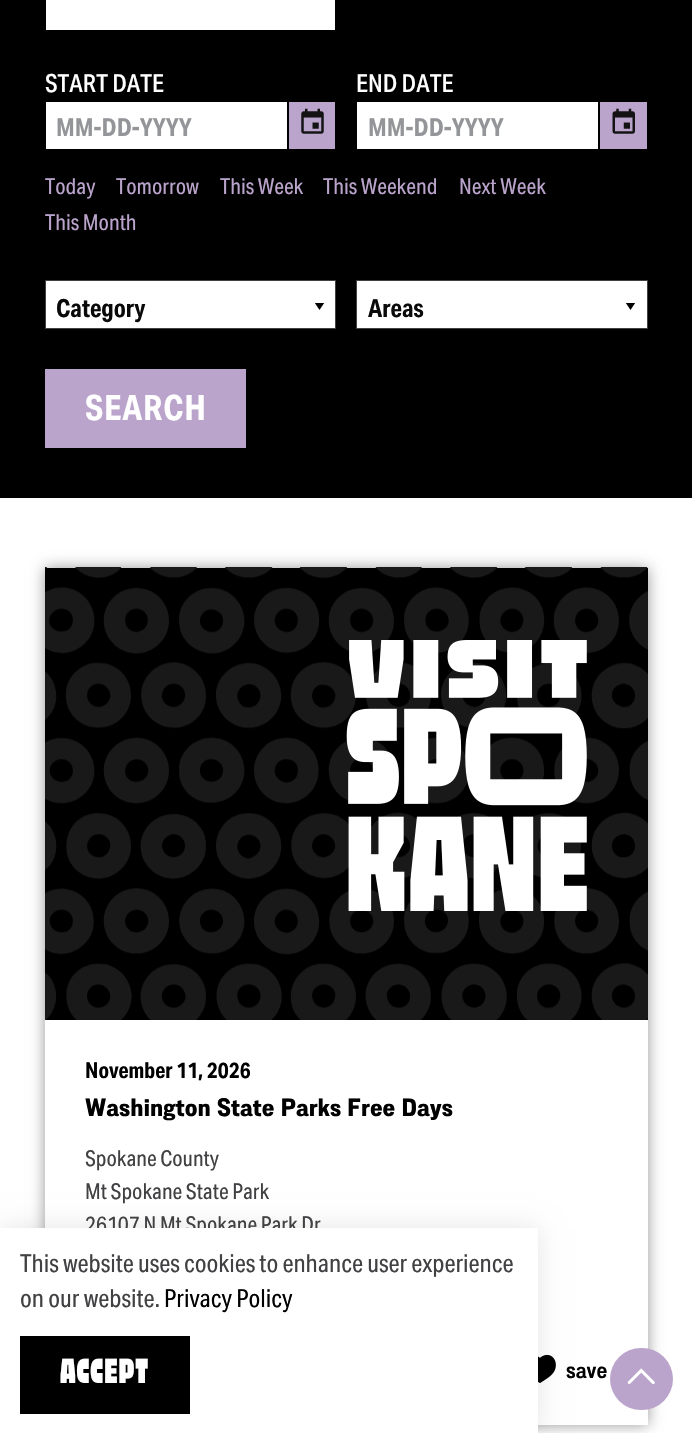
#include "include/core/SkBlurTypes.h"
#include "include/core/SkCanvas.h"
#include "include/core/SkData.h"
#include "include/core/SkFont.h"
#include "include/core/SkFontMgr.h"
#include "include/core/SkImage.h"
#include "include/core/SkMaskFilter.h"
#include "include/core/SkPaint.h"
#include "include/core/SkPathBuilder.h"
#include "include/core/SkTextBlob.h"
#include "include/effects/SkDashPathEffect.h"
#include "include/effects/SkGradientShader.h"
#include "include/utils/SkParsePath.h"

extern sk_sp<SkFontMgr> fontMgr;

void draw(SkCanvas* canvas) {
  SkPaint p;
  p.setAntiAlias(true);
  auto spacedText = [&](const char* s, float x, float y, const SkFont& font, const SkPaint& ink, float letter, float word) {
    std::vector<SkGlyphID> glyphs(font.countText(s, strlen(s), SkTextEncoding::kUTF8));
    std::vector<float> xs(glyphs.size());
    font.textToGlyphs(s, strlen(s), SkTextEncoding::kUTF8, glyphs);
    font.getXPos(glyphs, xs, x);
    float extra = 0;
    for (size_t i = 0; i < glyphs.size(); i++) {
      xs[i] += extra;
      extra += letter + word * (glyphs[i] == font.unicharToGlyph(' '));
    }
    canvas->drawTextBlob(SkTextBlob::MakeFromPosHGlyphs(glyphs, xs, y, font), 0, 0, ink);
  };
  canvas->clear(SK_ColorWHITE);
  p.setColor(SK_ColorBLACK);
  canvas->drawRect(SkRect::MakeLTRB(0, 0, 692, 498), p);
  p.setColor(SK_ColorWHITE);
  canvas->drawRect(SkRect::MakeLTRB(46, 0, 335, 30), p);
  canvas->drawRect(SkRect::MakeLTRB(46, 102, 287, 149), p);
  p.setColor(SkColorSetRGB(187, 164, 204));
  canvas->drawRect(SkRect::MakeLTRB(289, 102, 335, 149), p);
  canvas->drawImageRect(SkImages::DeferredFromEncodedData(SkData::MakeFromFileName("images/1.png")), SkRect::MakeLTRB(301, 108, 324, 134), SkSamplingOptions());
  p.setColor(SK_ColorWHITE);
  canvas->drawRect(SkRect::MakeLTRB(357, 102, 598, 149), p);
  p.setColor(SkColorSetRGB(187, 164, 204));
  canvas->drawRect(SkRect::MakeLTRB(600, 102, 647, 149), p);
  canvas->drawImageRect(SkImages::DeferredFromEncodedData(SkData::MakeFromFileName("images/2.png")), SkRect::MakeLTRB(612, 108, 635, 134), SkSamplingOptions());
  p.setColor(SK_ColorWHITE);
  canvas->drawRect(SkRect::MakeLTRB(46, 281, 335, 328), p);
  canvas->save();
  canvas->clipRect(SkRect::MakeLTRB(314, 303, 325, 310));
  p.setColor(SK_ColorBLACK);
  canvas->drawPath(SkPathBuilder().moveTo(314.5f, 302.5f).lineTo(324.5f, 302.5f).lineTo(319.5f, 310).close().detach(), p);
  canvas->restore();
  p.setStyle(SkPaint::kStroke_Style);
  p.setStrokeWidth(1);
  p.setColor(SkColorSetRGB(65, 64, 66));
  canvas->drawRect(SkRect::MakeLTRB(45.5f, 280.5f, 335.5f, 328.5f), p);
  p.setStyle(SkPaint::kFill_Style);
  p.setColor(SK_ColorWHITE);
  canvas->drawRect(SkRect::MakeLTRB(357, 281, 647, 328), p);
  canvas->save();
  canvas->clipRect(SkRect::MakeLTRB(625, 303, 636, 310));
  p.setColor(SK_ColorBLACK);
  canvas->drawPath(SkPathBuilder().moveTo(625.5f, 302.5f).lineTo(635.5f, 302.5f).lineTo(630.5f, 310).close().detach(), p);
  canvas->restore();
  p.setStyle(SkPaint::kStroke_Style);
  p.setColor(SkColorSetRGB(65, 64, 66));
  canvas->drawRect(SkRect::MakeLTRB(356.5f, 280.5f, 647.5f, 328.5f), p);
  p.setStyle(SkPaint::kFill_Style);
  p.setColor(SkColorSetRGB(187, 164, 204));
  canvas->drawRect(SkRect::MakeLTRB(45, 369, 246, 448), p);
  canvas->save();
  canvas->clipPath(SkPathBuilder(SkPathFillType::kEvenOdd).moveTo(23, 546).lineTo(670, 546).lineTo(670, 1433).lineTo(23, 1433).close().moveTo(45, 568).lineTo(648, 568).lineTo(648, 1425).lineTo(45, 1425).close().detach(), true);
  p.setColor(SkColorSetARGB(102, 0, 0, 0));
  p.setMaskFilter(SkMaskFilter::MakeBlur(kNormal_SkBlurStyle, 7));
  canvas->drawRect(SkRect::MakeLTRB(45, 568, 648, 1425), p);
  p.setMaskFilter(nullptr);
  canvas->restore();
  p.setColor(SK_ColorBLACK);
  canvas->drawRect(SkRect::MakeLTRB(45, 568, 648, 1020), p);
  canvas->drawImageRect(SkImages::DeferredFromEncodedData(SkData::MakeFromFileName("images/3.png")), SkRect::MakeLTRB(45, 567, 648, 1020), SkSamplingOptions());
  canvas->drawImageRect(SkImages::DeferredFromEncodedData(SkData::MakeFromFileName("images/4.png")), SkRect::MakeLTRB(346, 640, 587, 911), SkSamplingOptions());
  canvas->drawImageRect(SkImages::DeferredFromEncodedData(SkData::MakeFromFileName("images/5.png")), SkRect::MakeLTRB(538, 1354, 556, 1383), SkSamplingOptions());
  p.setColor(SkColorSetARGB(26, 0, 0, 0));
  p.setMaskFilter(SkMaskFilter::MakeBlur(kNormal_SkBlurStyle, 12.5f));
  canvas->drawRect(SkRect::MakeLTRB(0, 1228, 538, 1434), p);
  p.setMaskFilter(nullptr);
  p.setColor(SkColorSetRGB(187, 164, 204));
  canvas->drawRoundRect(SkRect::MakeLTRB(610, 1348, 673, 1410), 31, 31, p);
  canvas->drawImageRect(SkImages::DeferredFromEncodedData(SkData::MakeFromFileName("images/6.png")), SkRect::MakeLTRB(627, 1368, 655, 1385), SkSamplingOptions());
  SkFont font1(fontMgr->matchFamilyStyle("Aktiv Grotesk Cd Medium", SkFontStyle(500, SkFontStyle::kNormal_Width, SkFontStyle::kUpright_Slant)), 25);
  font1.setSubpixel(true);
  p.setColor(SK_ColorWHITE);
  canvas->drawString("START DATE", 45, 92, font1, p);
  SkFont font2(fontMgr->matchFamilyStyle("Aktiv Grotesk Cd", SkFontStyle::Bold()), 25);
  font2.setSubpixel(true);
  p.setColor(SkColorSetRGB(147, 149, 152));
  canvas->drawString("MM-DD-YYYY", 56, 136, font2, p);
  p.setColor(SK_ColorWHITE);
  canvas->drawString("END DATE", 356, 92, font1, p);
  p.setColor(SkColorSetRGB(147, 149, 152));
  canvas->drawString("MM-DD-YYYY", 368, 136, font2, p);
  SkFont font3(fontMgr->matchFamilyStyle("Aktiv Grotesk Cd", SkFontStyle::Normal()), 22);
  font3.setSubpixel(true);
  p.setColor(SkColorSetRGB(187, 164, 204));
  canvas->drawString("Today", 45, 194, font3, p);
  canvas->drawString("Tomorrow", 116, 194, font3, p);
  canvas->drawString("This Week", 220, 194, font3, p);
  canvas->drawString("This Weekend", 323, 194, font3, p);
  canvas->drawString("Next Week", 459, 194, font3, p);
  canvas->drawString("This Month", 45, 230, font3, p);
  p.setColor(SkColorSetRGB(10, 10, 10));
  canvas->drawString("Category", 56, 317, font2, p);
  canvas->drawString("Areas", 368, 317, font2, p);
  SkFont font4(fontMgr->matchFamilyStyle("Aktiv Grotesk Cd", SkFontStyle::Bold()), 35);
  font4.setSubpixel(true);
  p.setColor(SK_ColorWHITE);
  spacedText("SEARCH", 85, 420, font4, p, 0.75f, 0);
  SkFont font5(fontMgr->matchFamilyStyle("Aktiv Grotesk Cd", SkFontStyle::Bold()), 21.9f);
  font5.setSubpixel(true);
  p.setColor(SK_ColorBLACK);
  canvas->drawString("November 11, 2026", 85, 1078, font5, p);
  SkFont font6(fontMgr->matchFamilyStyle("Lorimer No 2", SkFontStyle::Bold()), 25);
  font6.setSubpixel(true);
  canvas->drawString("Washington State Parks Free Days", 85, 1116, font6, p);
  SkFont font7(fontMgr->matchFamilyStyle("Aktiv Grotesk Cd", SkFontStyle::Normal()), 21.9f);
  font7.setSubpixel(true);
  p.setColor(SkColorSetRGB(65, 64, 66));
  canvas->drawString("Spokane County", 85, 1166, font7, p);
  canvas->drawString("Mt Spokane State Park", 85, 1199, font7, p);
  canvas->drawString("26107 N Mt Spokane Park Dr", 85, 1232, font7, p);
  SkFont font8(fontMgr->matchFamilyStyle("Lorimer No 2", SkFontStyle(600, SkFontStyle::kNormal_Width, SkFontStyle::kUpright_Slant)), 24);
  font8.setSubpixel(true);
  p.setColor(SK_ColorBLACK);
  canvas->drawString("save", 566, 1378, font8, p);
  p.setColor(SK_ColorWHITE);
  canvas->drawRect(SkRect::MakeLTRB(0, 1228, 538, 1433), p);
  SkFont font9(fontMgr->matchFamilyStyle("Aktiv Grotesk Cd", SkFontStyle::Normal()), 25);
  font9.setSubpixel(true);
  p.setColor(SkColorSetRGB(65, 64, 66));
  canvas->drawString("This website uses cookies to enhance user experience", 20, 1272, font9, p);
  canvas->drawString("on our website.", 20, 1307, font9, p);
  p.setColor(SK_ColorBLACK);
  canvas->drawString("Privacy Policy", 164, 1307, font9, p);
  canvas->drawRect(SkRect::MakeLTRB(20, 1336, 190, 1414), p);
  SkFont font10(fontMgr->matchFamilyStyle("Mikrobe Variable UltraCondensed", SkFontStyle::Normal()), 34);
  font10.setSubpixel(true);
  p.setColor(SK_ColorWHITE);
  spacedText("ACCEPT", 60, 1383, font10, p, 0.75f, 0);
}
